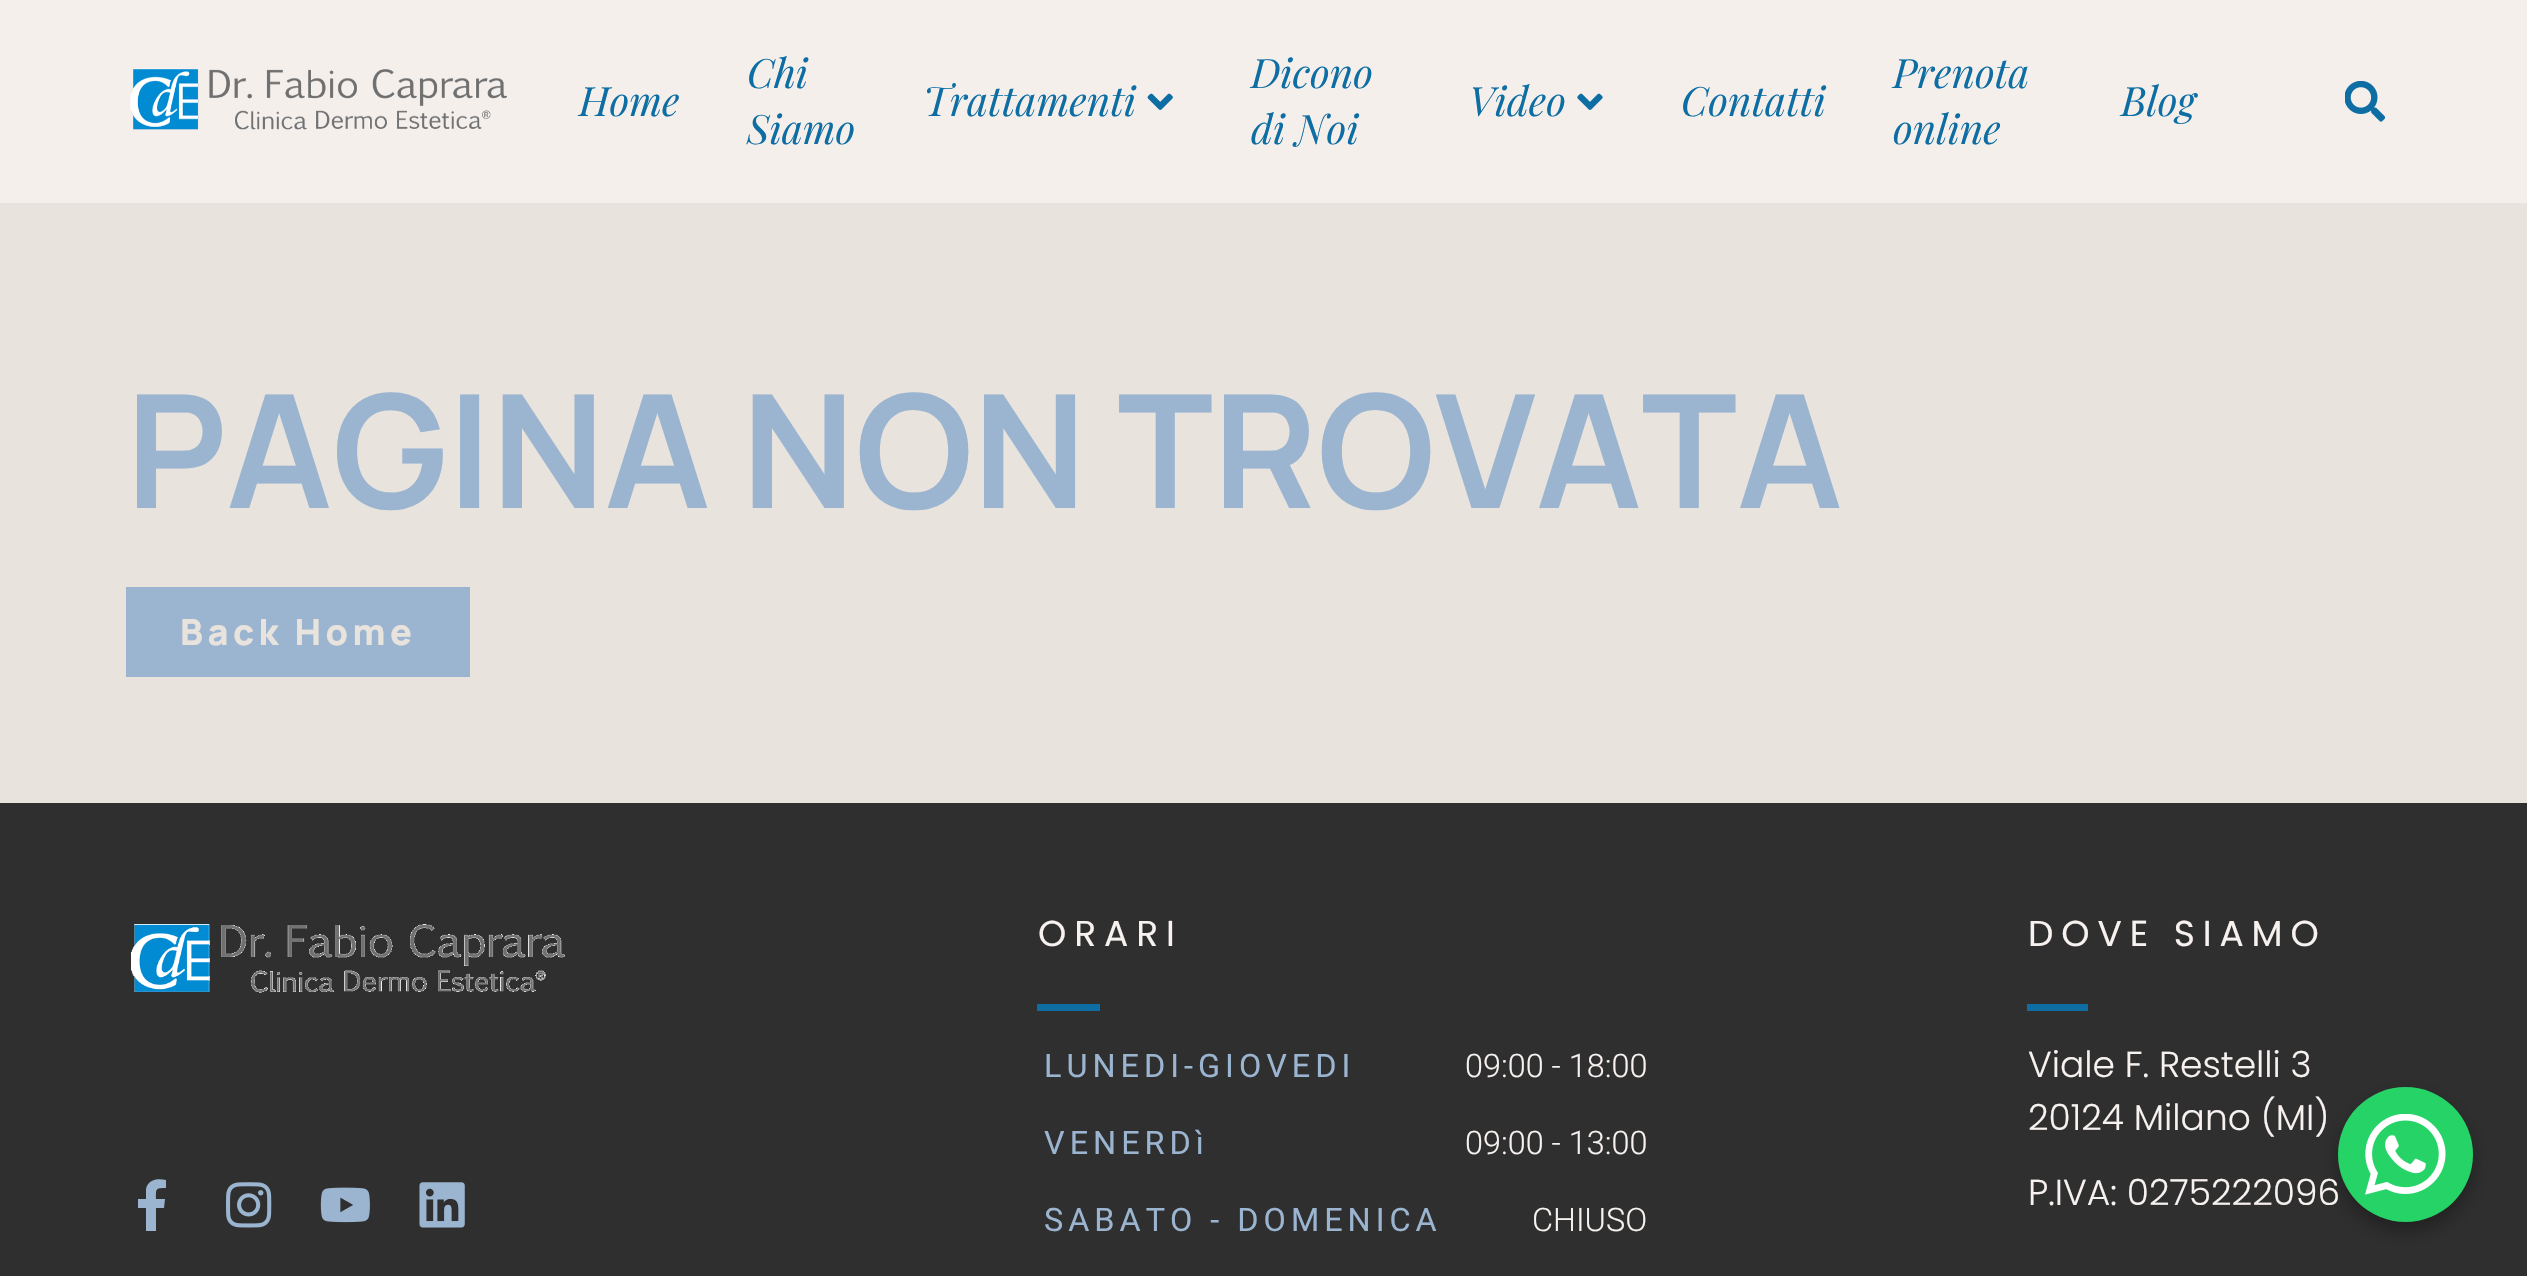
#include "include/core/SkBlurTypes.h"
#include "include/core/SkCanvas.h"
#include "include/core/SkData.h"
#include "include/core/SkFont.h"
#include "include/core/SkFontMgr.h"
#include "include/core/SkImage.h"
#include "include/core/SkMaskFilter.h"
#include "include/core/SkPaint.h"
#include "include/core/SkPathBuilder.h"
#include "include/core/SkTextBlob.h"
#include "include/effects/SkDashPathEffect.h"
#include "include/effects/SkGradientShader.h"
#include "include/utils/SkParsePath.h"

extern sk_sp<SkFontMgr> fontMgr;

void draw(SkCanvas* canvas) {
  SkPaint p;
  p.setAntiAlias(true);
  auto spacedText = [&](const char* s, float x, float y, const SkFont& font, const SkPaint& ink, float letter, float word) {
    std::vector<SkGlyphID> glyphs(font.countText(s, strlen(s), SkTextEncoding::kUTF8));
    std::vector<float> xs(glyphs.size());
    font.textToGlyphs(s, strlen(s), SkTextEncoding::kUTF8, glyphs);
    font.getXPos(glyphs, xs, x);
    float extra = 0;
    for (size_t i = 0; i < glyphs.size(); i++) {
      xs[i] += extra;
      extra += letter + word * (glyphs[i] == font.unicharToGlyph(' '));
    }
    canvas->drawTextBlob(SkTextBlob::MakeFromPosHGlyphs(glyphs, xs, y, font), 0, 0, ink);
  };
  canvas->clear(SkColorSetRGB(233, 227, 221));
  p.setColor(SkColorSetARGB(207, 247, 242, 239));
  canvas->drawRect(SkRect::MakeLTRB(0, 0, 2527, 203), p);
  canvas->drawImageRect(SkImages::DeferredFromEncodedData(SkData::MakeFromFileName("images/1.png")), SkRect::MakeLTRB(130, 68, 508, 130), SkSamplingOptions());
  canvas->drawImageRect(SkImages::DeferredFromEncodedData(SkData::MakeFromFileName("images/2.png")), SkRect::MakeLTRB(1147, 93, 1173, 110), SkSamplingOptions());
  canvas->drawImageRect(SkImages::DeferredFromEncodedData(SkData::MakeFromFileName("images/3.png")), SkRect::MakeLTRB(1577, 93, 1603, 110), SkSamplingOptions());
  canvas->drawImageRect(SkImages::DeferredFromEncodedData(SkData::MakeFromFileName("images/4.png")), SkRect::MakeLTRB(2345, 81, 2385, 122), SkSamplingOptions());
  p.setColor(SkColorSetRGB(155, 181, 209));
  canvas->drawRect(SkRect::MakeLTRB(126, 587, 470, 677), p);
  p.setColor(SkColorSetRGB(47, 47, 47));
  canvas->drawRect(SkRect::MakeLTRB(0, 803, 2527, 1276), p);
  canvas->drawImageRect(SkImages::DeferredFromEncodedData(SkData::MakeFromFileName("images/5.png")), SkRect::MakeLTRB(131, 924, 565, 993), SkSamplingOptions());
  p.setColor(SkColorSetRGB(155, 181, 209));
  canvas->drawPath(SkPathBuilder().moveTo(164, 1208).lineTo(165, 1199).lineTo(156, 1199).cubicTo(156, 1189, 155, 1188, 166, 1188).lineTo(166, 1180).cubicTo(158, 1178, 148, 1179, 146, 1189).lineTo(146, 1199).lineTo(138, 1199).lineTo(138, 1208).lineTo(146, 1208).lineTo(146, 1231).lineTo(156, 1231).lineTo(156, 1208).close().detach(), p);
  canvas->drawImageRect(SkImages::DeferredFromEncodedData(SkData::MakeFromFileName("images/6.png")), SkRect::MakeLTRB(226, 1182, 272, 1228), SkSamplingOptions());
  canvas->drawImageRect(SkImages::DeferredFromEncodedData(SkData::MakeFromFileName("images/7.png")), SkRect::MakeLTRB(320, 1187, 370, 1223), SkSamplingOptions());
  canvas->drawImageRect(SkImages::DeferredFromEncodedData(SkData::MakeFromFileName("images/8.png")), SkRect::MakeLTRB(419, 1182, 465, 1228), SkSamplingOptions());
  p.setColor(SkColorSetRGB(14, 110, 163));
  canvas->drawRect(SkRect::MakeLTRB(1037, 1004, 1100, 1011), p);
  canvas->drawRect(SkRect::MakeLTRB(2027, 1004, 2088, 1011), p);
  p.setColor(SkColorSetARGB(77, 0, 0, 0));
  p.setMaskFilter(SkMaskFilter::MakeBlur(kNormal_SkBlurStyle, 9));
  canvas->drawRoundRect(SkRect::MakeLTRB(2338, 1096, 2473, 1231), 67.5f, 67.5f, p);
  p.setMaskFilter(nullptr);
  p.setColor(SkColorSetRGB(37, 211, 102));
  canvas->drawCircle(2405.5f, 1154.5f, 67.5f, p);
  canvas->drawImageRect(SkImages::DeferredFromEncodedData(SkData::MakeFromFileName("images/9.png")), SkRect::MakeLTRB(2365, 1114, 2446, 1195), SkSamplingOptions());
  SkFont font1(fontMgr->matchFamilyStyle("Playfair Display", SkFontStyle::Italic()), 40.5f);
  font1.setSubpixel(true);
  p.setColor(SkColorSetRGB(14, 110, 163));
  canvas->drawString("Home", 579, 116, font1, p);
  canvas->drawString("Chi", 747, 88, font1, p);
  canvas->drawString("Siamo", 747, 144, font1, p);
  canvas->drawString("Trattamenti", 923, 116, font1, p);
  canvas->drawString("Dicono", 1251, 88, font1, p);
  canvas->drawString("di Noi", 1251, 144, font1, p);
  canvas->drawString("Video", 1469, 116, font1, p);
  canvas->drawString("Contatti", 1681, 116, font1, p);
  canvas->drawString("Prenota", 1893, 88, font1, p);
  canvas->drawString("online", 1893, 144, font1, p);
  canvas->drawString("Blog", 2121, 116, font1, p);
  SkFont font2(fontMgr->matchFamilyStyle("Manrope", SkFontStyle::Bold()), 157.5f);
  font2.setSubpixel(true);
  p.setColor(SkColorSetRGB(155, 181, 209));
  canvas->drawString("PAGINA NON TROVATA", 126, 508, font2, p);
  SkFont font3(fontMgr->matchFamilyStyle("Manrope", SkFontStyle(800, SkFontStyle::kNormal_Width, SkFontStyle::kUpright_Slant)), 36);
  font3.setSubpixel(true);
  p.setColor(SkColorSetRGB(233, 227, 221));
  spacedText("Back Home", 180, 645, font3, p, 4.5f, 0);
  SkFont font4(fontMgr->matchFamilyStyle("Poppins", SkFontStyle::Normal()), 36);
  font4.setSubpixel(true);
  p.setColor(SkColorSetRGB(247, 242, 239));
  spacedText("ORARI", 1038, 946, font4, p, 7.9f, 0);
  SkFont font5(fontMgr->matchFamilyStyle("Roboto", SkFontStyle::Normal()), 32.4f);
  font5.setSubpixel(true);
  p.setColor(SkColorSetRGB(155, 181, 209));
  spacedText("LUNEDI-GIOVEDI", 1044, 1077, font5, p, 5, 0);
  SkFont font6(fontMgr->matchFamilyStyle("Roboto", SkFontStyle(300, SkFontStyle::kNormal_Width, SkFontStyle::kUpright_Slant)), 32.4f);
  font6.setSubpixel(true);
  p.setColor(SkColorSetRGB(247, 242, 239));
  canvas->drawString("09:00 - 18:00", 1465, 1077, font6, p);
  p.setColor(SkColorSetRGB(155, 181, 209));
  spacedText("VENERDì", 1044, 1154, font5, p, 5, 0);
  p.setColor(SkColorSetRGB(247, 242, 239));
  canvas->drawString("09:00 - 13:00", 1465, 1154, font6, p);
  p.setColor(SkColorSetRGB(155, 181, 209));
  spacedText("SABATO - DOMENICA", 1044, 1231, font5, p, 5, 0);
  p.setColor(SkColorSetRGB(247, 242, 239));
  canvas->drawString("CHIUSO", 1532, 1231, font6, p);
  spacedText("DOVE SIAMO", 2028, 946, font4, p, 7.9f, 0);
  SkFont font7(fontMgr->matchFamilyStyle("Poppins", SkFontStyle(300, SkFontStyle::kNormal_Width, SkFontStyle::kUpright_Slant)), 36);
  font7.setSubpixel(true);
  canvas->drawString("Viale F. Restelli 3", 2028, 1077, font7, p);
  canvas->drawString("20124 Milano (MI)", 2028, 1130, font7, p);
  canvas->drawString("P.IVA: 0275222096", 2028, 1205, font7, p);
}
